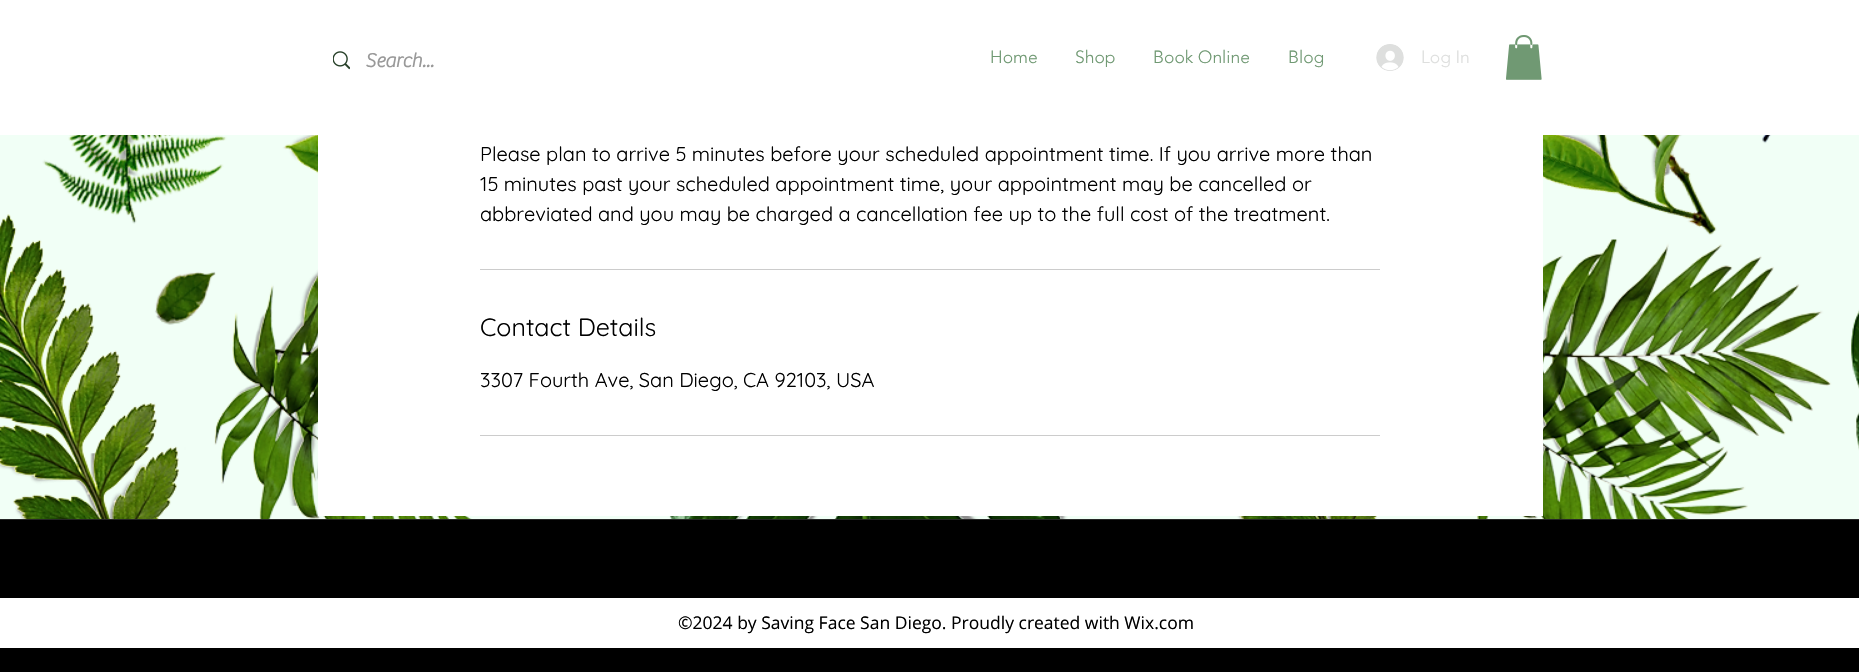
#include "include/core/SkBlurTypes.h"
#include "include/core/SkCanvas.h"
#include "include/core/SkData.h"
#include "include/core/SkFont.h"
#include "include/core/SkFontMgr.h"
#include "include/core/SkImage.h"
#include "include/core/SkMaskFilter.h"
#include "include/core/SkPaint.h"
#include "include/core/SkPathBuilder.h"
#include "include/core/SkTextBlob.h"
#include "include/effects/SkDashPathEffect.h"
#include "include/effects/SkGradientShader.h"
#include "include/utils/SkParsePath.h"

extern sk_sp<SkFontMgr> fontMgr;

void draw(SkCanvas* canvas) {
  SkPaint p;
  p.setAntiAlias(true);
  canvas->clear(SkColorSetRGB(241, 255, 246));
  p.setColor(SK_ColorWHITE);
  canvas->drawRect(SkRect::MakeLTRB(0, 0, 1859, 135), p);
  canvas->drawImageRect(SkImages::DeferredFromEncodedData(SkData::MakeFromFileName("images/1.png")), SkRect::MakeLTRB(333, 51, 350, 70), SkSamplingOptions());
  canvas->drawImageRect(SkImages::DeferredFromEncodedData(SkData::MakeFromFileName("images/2.png")), SkRect::MakeLTRB(1376, 44, 1404, 71), SkSamplingOptions());
  canvas->drawImageRect(SkImages::DeferredFromEncodedData(SkData::MakeFromFileName("images/3.png")), SkRect::MakeLTRB(1506, 35, 1542, 80), SkSamplingOptions());
  canvas->drawImageRect(SkImages::DeferredFromEncodedData(SkData::MakeFromFileName("images/4.png")), SkRect::MakeLTRB(0, 135, 1859, 519), SkSamplingOptions());
  canvas->drawRect(SkRect::MakeLTRB(318, 135, 1543, 516), p);
  p.setColor(SkColorSetRGB(204, 204, 204));
  canvas->drawRect(SkRect::MakeLTRB(480, 269, 1380, 270), p);
  canvas->drawRect(SkRect::MakeLTRB(480, 435, 1380, 436), p);
  p.setColor(SK_ColorBLACK);
  canvas->drawRect(SkRect::MakeLTRB(0, 520, 1859, 672), p);
  p.setColor(SkColorSetRGB(38, 38, 38));
  canvas->drawRect(SkRect::MakeLTRB(0, 519, 1859, 520), p);
  p.setColor(SK_ColorWHITE);
  canvas->drawRect(SkRect::MakeLTRB(0, 598, 1859, 648), p);
  SkFont font1(fontMgr->matchFamilyStyle("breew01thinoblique", SkFontStyle::Bold()), 20);
  font1.setSubpixel(true);
  p.setColor(SkColorSetRGB(153, 153, 153));
  canvas->drawString("Search...", 365, 67, font1, p);
  SkFont font2(fontMgr->matchFamilyStyle("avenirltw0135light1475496", SkFontStyle(300, SkFontStyle::kNormal_Width, SkFontStyle::kUpright_Slant)), 17.5f);
  font2.setSubpixel(true);
  p.setColor(SkColorSetRGB(112, 153, 115));
  canvas->drawString("Home", 990, 63, font2, p);
  canvas->drawString("Shop", 1075, 63, font2, p);
  canvas->drawString("Book Online", 1153, 63, font2, p);
  canvas->drawString("Blog", 1288, 63, font2, p);
  p.setColor(SkColorSetRGB(222, 223, 222));
  canvas->drawString("Log In", 1421, 63, font2, p);
  SkFont font3(fontMgr->matchFamilyStyle("Quicksand", SkFontStyle::Normal()), 20);
  font3.setSubpixel(true);
  p.setColor(SK_ColorBLACK);
  canvas->drawString("Please plan to arrive 5 minutes before your scheduled appointment time. If you arrive more than", 480, 161, font3, p);
  canvas->drawString("15 minutes past your scheduled appointment time, your appointment may be cancelled or", 480, 191, font3, p);
  canvas->drawString("abbreviated and you may be charged a cancellation fee up to the full cost of the treatment.", 480, 221, font3, p);
  SkFont font4(fontMgr->matchFamilyStyle("Quicksand", SkFontStyle::Normal()), 25);
  font4.setSubpixel(true);
  canvas->drawString("Contact Details", 480, 336, font4, p);
  canvas->drawString("3307 Fourth Ave, San Diego, CA 92103, USA", 480, 387, font3, p);
  SkFont font5(fontMgr->matchFamilyStyle("Open Sans", SkFontStyle::Normal()), 17.5f);
  font5.setSubpixel(true);
  canvas->drawString("©2024 by Saving Face San Diego. Proudly created with Wix.com", 678, 629, font5, p);
}
